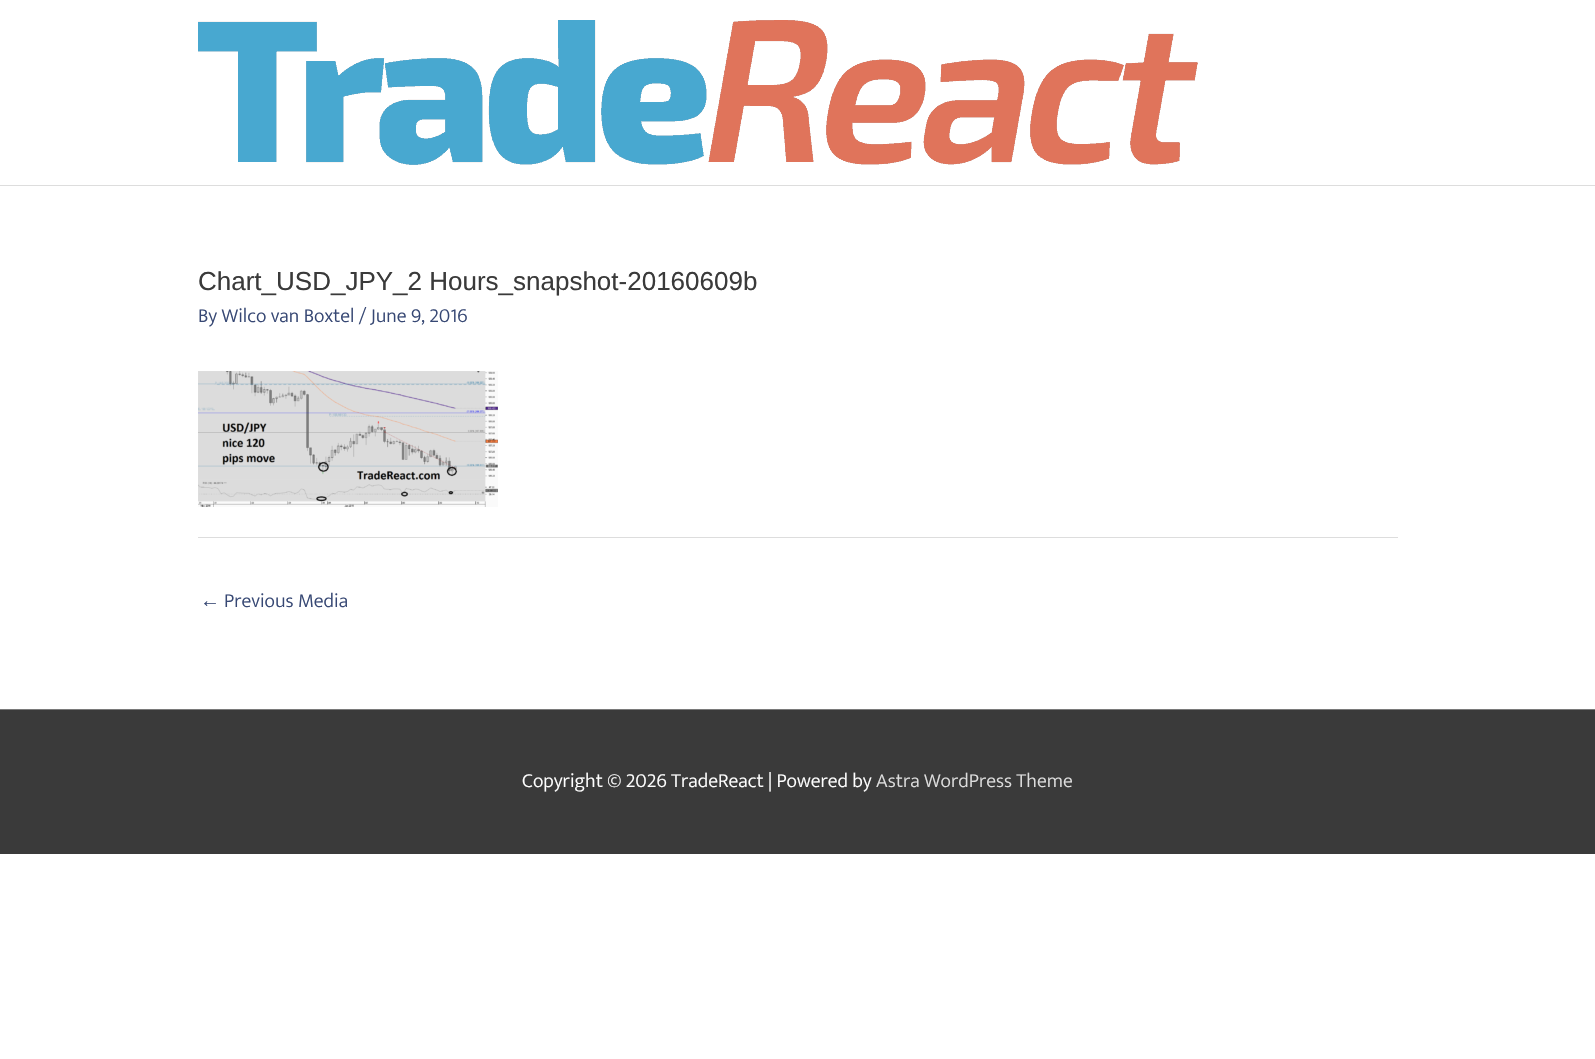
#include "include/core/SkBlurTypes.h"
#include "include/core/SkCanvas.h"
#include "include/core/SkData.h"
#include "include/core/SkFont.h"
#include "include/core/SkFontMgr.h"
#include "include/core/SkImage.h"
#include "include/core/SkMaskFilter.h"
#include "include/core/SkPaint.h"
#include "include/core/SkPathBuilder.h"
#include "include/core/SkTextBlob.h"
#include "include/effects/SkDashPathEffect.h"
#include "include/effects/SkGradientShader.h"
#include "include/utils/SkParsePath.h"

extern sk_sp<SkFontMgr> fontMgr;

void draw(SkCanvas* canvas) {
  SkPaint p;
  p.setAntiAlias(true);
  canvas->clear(SK_ColorWHITE);
  p.setColor(SkColorSetRGB(221, 221, 221));
  canvas->drawRect(SkRect::MakeLTRB(0, 185, 1595, 186), p);
  canvas->drawImageRect(SkImages::DeferredFromEncodedData(SkData::MakeFromFileName("images/1.png")), SkRect::MakeLTRB(198, 20, 1198, 165), SkSamplingOptions());
  canvas->drawImageRect(SkImages::DeferredFromEncodedData(SkData::MakeFromFileName("images/2.png")), SkRect::MakeLTRB(198, 371, 498, 507), SkSamplingOptions());
  canvas->drawRect(SkRect::MakeLTRB(198, 537, 1398, 538), p);
  p.setColor(SkColorSetRGB(122, 122, 122));
  canvas->drawRect(SkRect::MakeLTRB(0, 709, 1595, 710), p);
  p.setColor(SkColorSetRGB(58, 58, 58));
  canvas->drawRect(SkRect::MakeLTRB(0, 710, 1595, 854), p);
  SkFont font1(fontMgr->matchFamilyStyle("Liberation Sans", SkFontStyle::Normal()), 26);
  font1.setSubpixel(true);
  canvas->drawString("Chart_USD_JPY_2 Hours_snapshot-20160609b", 198, 290, font1, p);
  SkFont font2(fontMgr->matchFamilyStyle("Mukta", SkFontStyle(300, SkFontStyle::kNormal_Width, SkFontStyle::kUpright_Slant)), 20);
  font2.setSubpixel(true);
  p.setColor(SkColorSetRGB(55, 72, 116));
  canvas->drawString("By Wilco van Boxtel / June 9, 2016", 198, 322, font2, p);
  SkFont font3(fontMgr->matchFamilyStyle("Liberation Sans", SkFontStyle::Normal()), 20);
  font3.setSubpixel(true);
  canvas->drawString("←", 200, 607, font3, p);
  canvas->drawString("Previous Media", 224, 607, font2, p);
  p.setColor(SK_ColorWHITE);
  canvas->drawString("Copyright © 2026 TradeReact | Powered by", 522, 787, font2, p);
  p.setColor(SkColorSetRGB(221, 221, 221));
  canvas->drawString("Astra WordPress Theme", 876, 787, font2, p);
}
